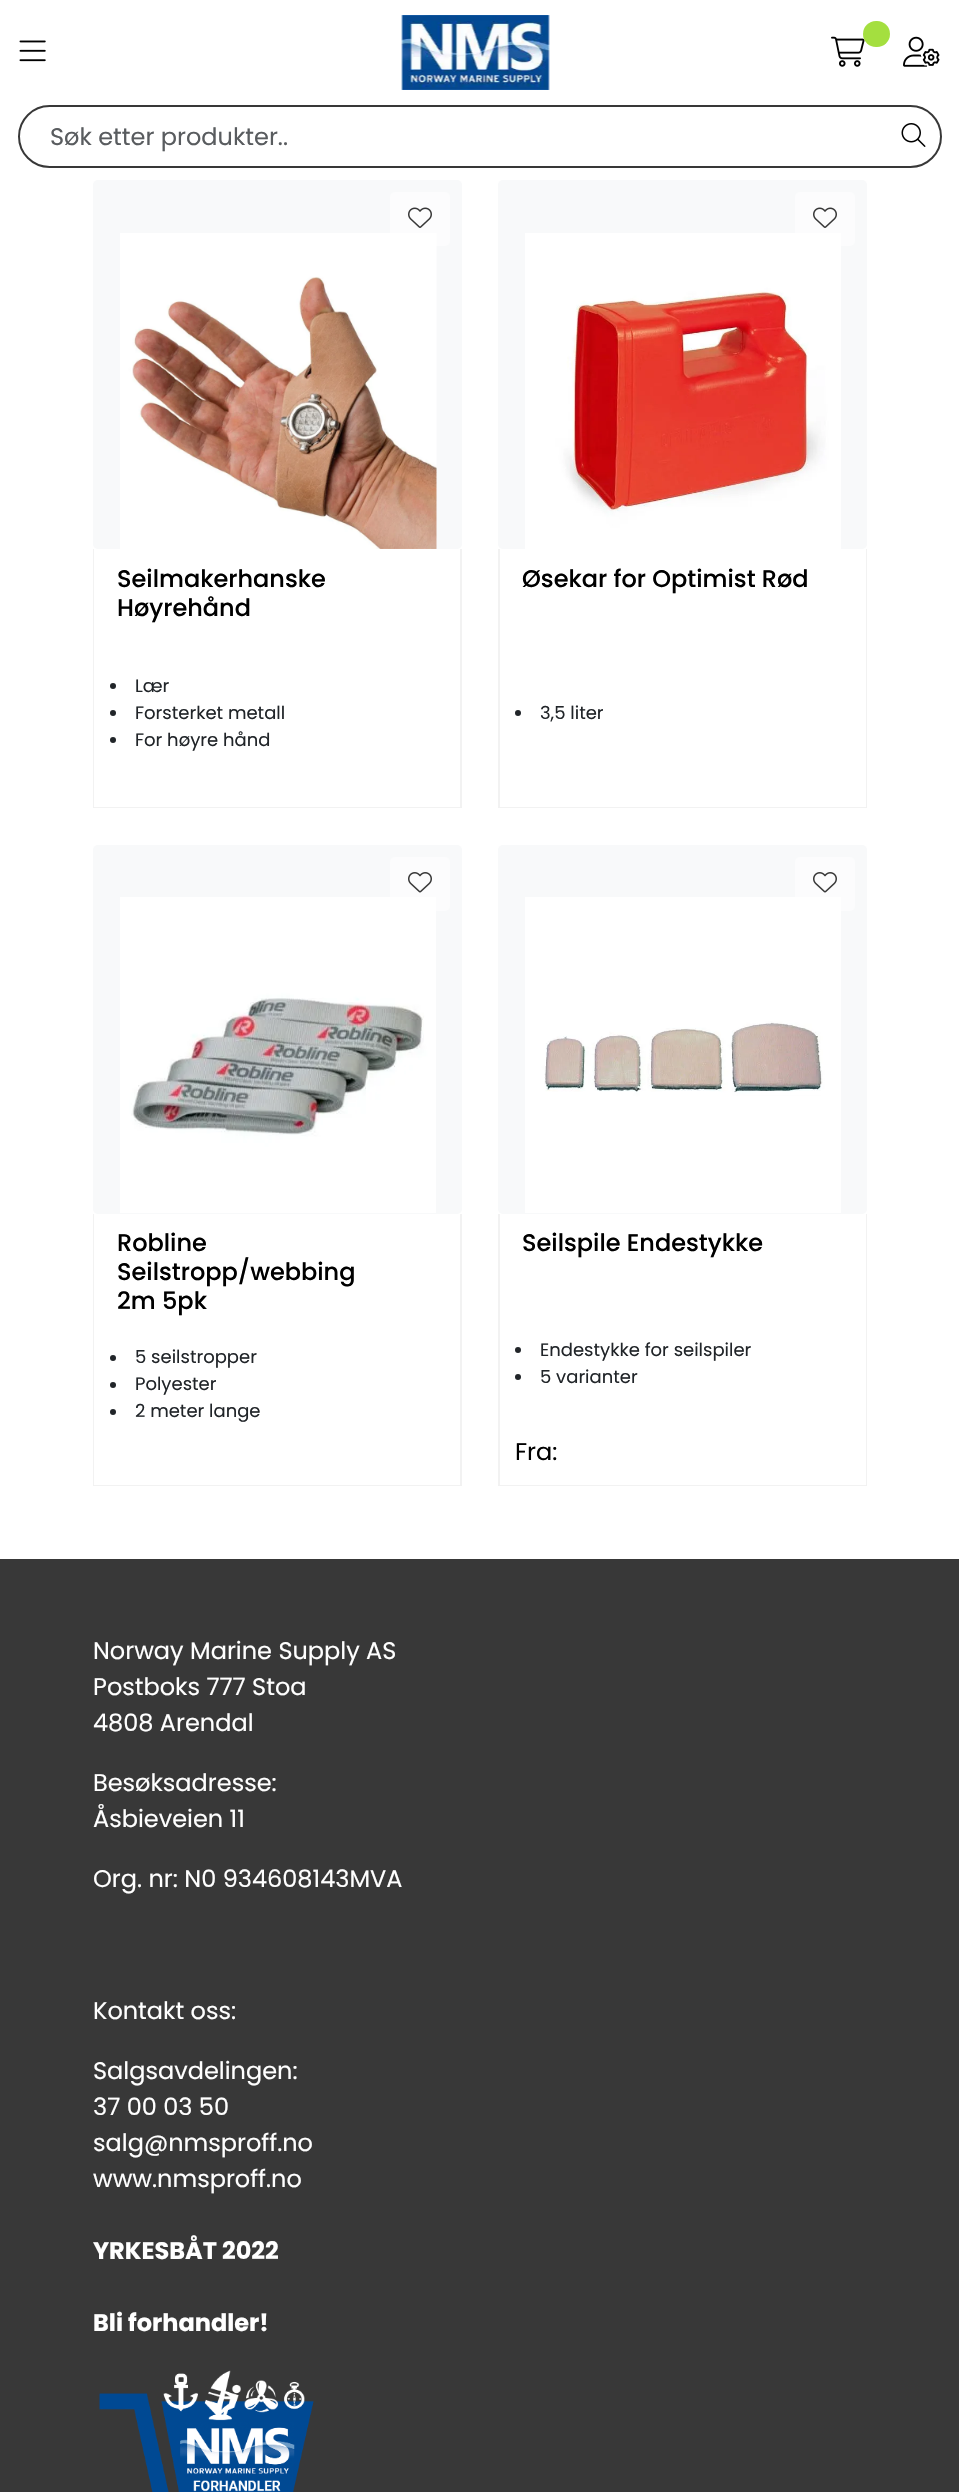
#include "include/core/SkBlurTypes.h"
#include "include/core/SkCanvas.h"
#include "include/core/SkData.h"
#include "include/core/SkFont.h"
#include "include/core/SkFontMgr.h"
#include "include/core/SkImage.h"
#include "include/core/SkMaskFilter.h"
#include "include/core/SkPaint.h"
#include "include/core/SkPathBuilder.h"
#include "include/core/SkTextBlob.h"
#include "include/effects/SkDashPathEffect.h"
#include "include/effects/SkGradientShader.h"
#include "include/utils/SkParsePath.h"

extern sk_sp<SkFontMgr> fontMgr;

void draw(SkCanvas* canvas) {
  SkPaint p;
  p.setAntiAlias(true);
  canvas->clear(SK_ColorWHITE);
  canvas->drawImageRect(SkImages::DeferredFromEncodedData(SkData::MakeFromFileName("images/1.png")), SkRect::MakeLTRB(19, 40, 46, 62), SkSamplingOptions());
  canvas->drawImageRect(SkImages::DeferredFromEncodedData(SkData::MakeFromFileName("images/2.png")), SkRect::MakeLTRB(401, 15, 550, 90), SkSamplingOptions());
  canvas->drawImageRect(SkImages::DeferredFromEncodedData(SkData::MakeFromFileName("images/3.png")), SkRect::MakeLTRB(831, 36, 865, 67), SkSamplingOptions());
  p.setColor(SkColorSetRGB(164, 223, 63));
  canvas->drawRoundRect(SkRect::MakeLTRB(863, 21, 890, 47), 13, 13, p);
  canvas->drawImageRect(SkImages::DeferredFromEncodedData(SkData::MakeFromFileName("images/4.png")), SkRect::MakeLTRB(903, 36, 940, 67), SkSamplingOptions());
  p.setStyle(SkPaint::kStroke_Style);
  p.setStrokeWidth(2);
  p.setColor(SkColorSetRGB(56, 56, 56));
  canvas->drawRoundRect(SkRect::MakeLTRB(19, 106, 941, 167), 30.5f, 30.5f, p);
  canvas->drawImageRect(SkImages::DeferredFromEncodedData(SkData::MakeFromFileName("images/5.png")), SkRect::MakeLTRB(901, 123, 926, 147), SkSamplingOptions());
  p.setStyle(SkPaint::kFill_Style);
  p.setColor(SkColorSetRGB(248, 249, 250));
  canvas->drawRoundRect(SkRect::MakeLTRB(93, 180, 462, 549), 5, 5, p);
  canvas->drawImageRect(SkImages::DeferredFromEncodedData(SkData::MakeFromFileName("images/6.png")), SkRect::MakeLTRB(120, 233, 437, 549), SkSamplingOptions());
  p.setColor(SkColorSetRGB(242, 242, 242));
  canvas->drawPath(SkPathBuilder().moveTo(462, 549).lineTo(462, 808).lineTo(460, 807).lineTo(460, 549).close().detach(), p);
  p.setColor(SkColorSetARGB(13, 0, 0, 0));
  canvas->drawPath(SkPathBuilder().moveTo(462, 808).lineTo(93, 808).lineTo(94, 807).lineTo(460, 807).close().detach(), p);
  canvas->drawPath(SkPathBuilder().moveTo(93, 808).lineTo(93, 549).lineTo(94, 549).lineTo(94, 807).close().detach(), p);
  p.setColor(SkColorSetARGB(128, 255, 255, 255));
  canvas->drawRoundRect(SkRect::MakeLTRB(390, 192, 450, 246), 5, 5, p);
  canvas->drawImageRect(SkImages::DeferredFromEncodedData(SkData::MakeFromFileName("images/7.png")), SkRect::MakeLTRB(408, 207, 432, 228), SkSamplingOptions());
  p.setColor(SkColorSetRGB(33, 37, 41));
  canvas->drawCircle(113, 686, 3, p);
  canvas->drawCircle(113, 713, 3, p);
  canvas->drawCircle(113, 740, 3, p);
  p.setColor(SkColorSetRGB(248, 249, 250));
  canvas->drawRoundRect(SkRect::MakeLTRB(498, 180, 867, 549), 5, 5, p);
  canvas->drawImageRect(SkImages::DeferredFromEncodedData(SkData::MakeFromFileName("images/8.png")), SkRect::MakeLTRB(525, 233, 841, 549), SkSamplingOptions());
  p.setColor(SkColorSetRGB(242, 242, 242));
  canvas->drawPath(SkPathBuilder().moveTo(867, 549).lineTo(867, 808).lineTo(866, 807).lineTo(866, 549).close().detach(), p);
  p.setColor(SkColorSetARGB(13, 0, 0, 0));
  canvas->drawPath(SkPathBuilder().moveTo(867, 808).lineTo(498, 808).lineTo(500, 807).lineTo(866, 807).close().detach(), p);
  canvas->drawPath(SkPathBuilder().moveTo(498, 808).lineTo(498, 549).lineTo(500, 549).lineTo(500, 807).close().detach(), p);
  p.setColor(SkColorSetARGB(128, 255, 255, 255));
  canvas->drawRoundRect(SkRect::MakeLTRB(795, 192, 855, 246), 5, 5, p);
  canvas->drawImageRect(SkImages::DeferredFromEncodedData(SkData::MakeFromFileName("images/7.png")), SkRect::MakeLTRB(813, 207, 837, 228), SkSamplingOptions());
  p.setColor(SkColorSetRGB(33, 37, 41));
  canvas->drawCircle(518, 713, 3, p);
  p.setColor(SkColorSetRGB(248, 249, 250));
  canvas->drawRoundRect(SkRect::MakeLTRB(93, 845, 462, 1214), 5, 5, p);
  canvas->drawImageRect(SkImages::DeferredFromEncodedData(SkData::MakeFromFileName("images/9.png")), SkRect::MakeLTRB(120, 897, 436, 1213), SkSamplingOptions());
  p.setColor(SkColorSetRGB(242, 242, 242));
  canvas->drawPath(SkPathBuilder().moveTo(462, 1214).lineTo(462, 1486).lineTo(460, 1485).lineTo(460, 1214).close().detach(), p);
  p.setColor(SkColorSetARGB(13, 0, 0, 0));
  canvas->drawPath(SkPathBuilder().moveTo(462, 1486).lineTo(93, 1486).lineTo(94, 1485).lineTo(460, 1485).close().detach(), p);
  canvas->drawPath(SkPathBuilder().moveTo(93, 1486).lineTo(93, 1214).lineTo(94, 1214).lineTo(94, 1485).close().detach(), p);
  p.setColor(SkColorSetARGB(128, 255, 255, 255));
  canvas->drawRoundRect(SkRect::MakeLTRB(390, 857, 450, 911), 5, 5, p);
  canvas->drawImageRect(SkImages::DeferredFromEncodedData(SkData::MakeFromFileName("images/10.png")), SkRect::MakeLTRB(408, 872, 432, 893), SkSamplingOptions());
  p.setColor(SkColorSetRGB(33, 37, 41));
  canvas->drawCircle(113, 1358, 3, p);
  canvas->drawCircle(113, 1385, 3, p);
  canvas->drawCircle(113, 1412, 3, p);
  p.setColor(SkColorSetRGB(248, 249, 250));
  canvas->drawRoundRect(SkRect::MakeLTRB(498, 845, 867, 1214), 5, 5, p);
  canvas->drawImageRect(SkImages::DeferredFromEncodedData(SkData::MakeFromFileName("images/11.png")), SkRect::MakeLTRB(525, 897, 841, 1213), SkSamplingOptions());
  p.setColor(SkColorSetRGB(242, 242, 242));
  canvas->drawPath(SkPathBuilder().moveTo(867, 1214).lineTo(867, 1486).lineTo(866, 1485).lineTo(866, 1214).close().detach(), p);
  p.setColor(SkColorSetARGB(13, 0, 0, 0));
  canvas->drawPath(SkPathBuilder().moveTo(867, 1486).lineTo(498, 1486).lineTo(500, 1485).lineTo(866, 1485).close().detach(), p);
  canvas->drawPath(SkPathBuilder().moveTo(498, 1486).lineTo(498, 1214).lineTo(500, 1214).lineTo(500, 1485).close().detach(), p);
  p.setColor(SkColorSetARGB(128, 255, 255, 255));
  canvas->drawRoundRect(SkRect::MakeLTRB(795, 857, 855, 911), 5, 5, p);
  canvas->drawImageRect(SkImages::DeferredFromEncodedData(SkData::MakeFromFileName("images/10.png")), SkRect::MakeLTRB(813, 872, 837, 893), SkSamplingOptions());
  p.setColor(SkColorSetRGB(33, 37, 41));
  canvas->drawCircle(518, 1350, 3, p);
  canvas->drawCircle(518, 1377, 3, p);
  p.setColor(SkColorSetRGB(56, 56, 56));
  canvas->drawRect(SkRect::MakeLTRB(0, 1559, 959, 2492), p);
  canvas->drawImageRect(SkImages::DeferredFromEncodedData(SkData::MakeFromFileName("images/12.png")), SkRect::MakeLTRB(99, 2370, 314, 2492), SkSamplingOptions());
  SkFont font1(fontMgr->matchFamilyStyle("Poppins", SkFontStyle::Normal()), 24);
  font1.setSubpixel(true);
  p.setColor(SkColorSetRGB(89, 92, 95));
  canvas->drawString("Søk etter produkter..", 50, 145, font1, p);
  SkFont font2(fontMgr->matchFamilyStyle("Poppins", SkFontStyle(500, SkFontStyle::kNormal_Width, SkFontStyle::kUpright_Slant)), 24);
  font2.setSubpixel(true);
  p.setColor(SK_ColorBLACK);
  canvas->drawString("Seilmakerhanske", 117, 587, font2, p);
  canvas->drawString("Høyrehånd", 117, 616, font2, p);
  SkFont font3(fontMgr->matchFamilyStyle("Poppins", SkFontStyle::Normal()), 18);
  font3.setSubpixel(true);
  p.setColor(SkColorSetRGB(33, 37, 41));
  canvas->drawString("Lær", 135, 692, font3, p);
  canvas->drawString("Forsterket metall", 135, 719, font3, p);
  canvas->drawString("For høyre hånd", 135, 746, font3, p);
  p.setColor(SK_ColorBLACK);
  canvas->drawString("Øsekar for Optimist Rød", 522, 587, font2, p);
  p.setColor(SkColorSetRGB(33, 37, 41));
  canvas->drawString("3,5 liter", 540, 719, font3, p);
  p.setColor(SK_ColorBLACK);
  canvas->drawString("Robline", 117, 1251, font2, p);
  canvas->drawString("Seilstropp/webbing", 117, 1280, font2, p);
  canvas->drawString("2m 5pk", 117, 1309, font2, p);
  p.setColor(SkColorSetRGB(33, 37, 41));
  canvas->drawString("5 seilstropper", 135, 1363, font3, p);
  canvas->drawString("Polyester", 135, 1390, font3, p);
  canvas->drawString("2 meter lange", 135, 1417, font3, p);
  p.setColor(SK_ColorBLACK);
  canvas->drawString("Seilspile Endestykke", 522, 1251, font2, p);
  p.setColor(SkColorSetRGB(33, 37, 41));
  canvas->drawString("Endestykke for seilspiler", 540, 1356, font3, p);
  canvas->drawString("5 varianter", 540, 1383, font3, p);
  p.setColor(SK_ColorBLACK);
  canvas->drawString("Fra:", 515, 1460, font1, p);
  p.setColor(SK_ColorWHITE);
  canvas->drawString("Norway Marine Supply AS", 93, 1659, font1, p);
  canvas->drawString("Postboks 777 Stoa", 93, 1695, font1, p);
  canvas->drawString("4808 Arendal", 93, 1731, font1, p);
  canvas->drawString("Besøksadresse:", 93, 1791, font1, p);
  canvas->drawString("Åsbieveien 11", 93, 1827, font1, p);
  canvas->drawString("Org. nr: N0 934608143MVA", 93, 1887, font1, p);
  canvas->drawString("Kontakt oss:", 93, 2019, font1, p);
  canvas->drawString("Salgsavdelingen:", 93, 2079, font1, p);
  canvas->drawString("37 00 03 50", 93, 2115, font1, p);
  canvas->drawString("salg@nmsproff.no", 93, 2151, font1, p);
  canvas->drawString("www.nmsproff.no", 93, 2187, font1, p);
  SkFont font4(fontMgr->matchFamilyStyle("Poppins", SkFontStyle::Bold()), 24);
  font4.setSubpixel(true);
  canvas->drawString("YRKESBÅT 2022", 93, 2259, font4, p);
  canvas->drawString("Bli forhandler!", 93, 2331, font4, p);
}
